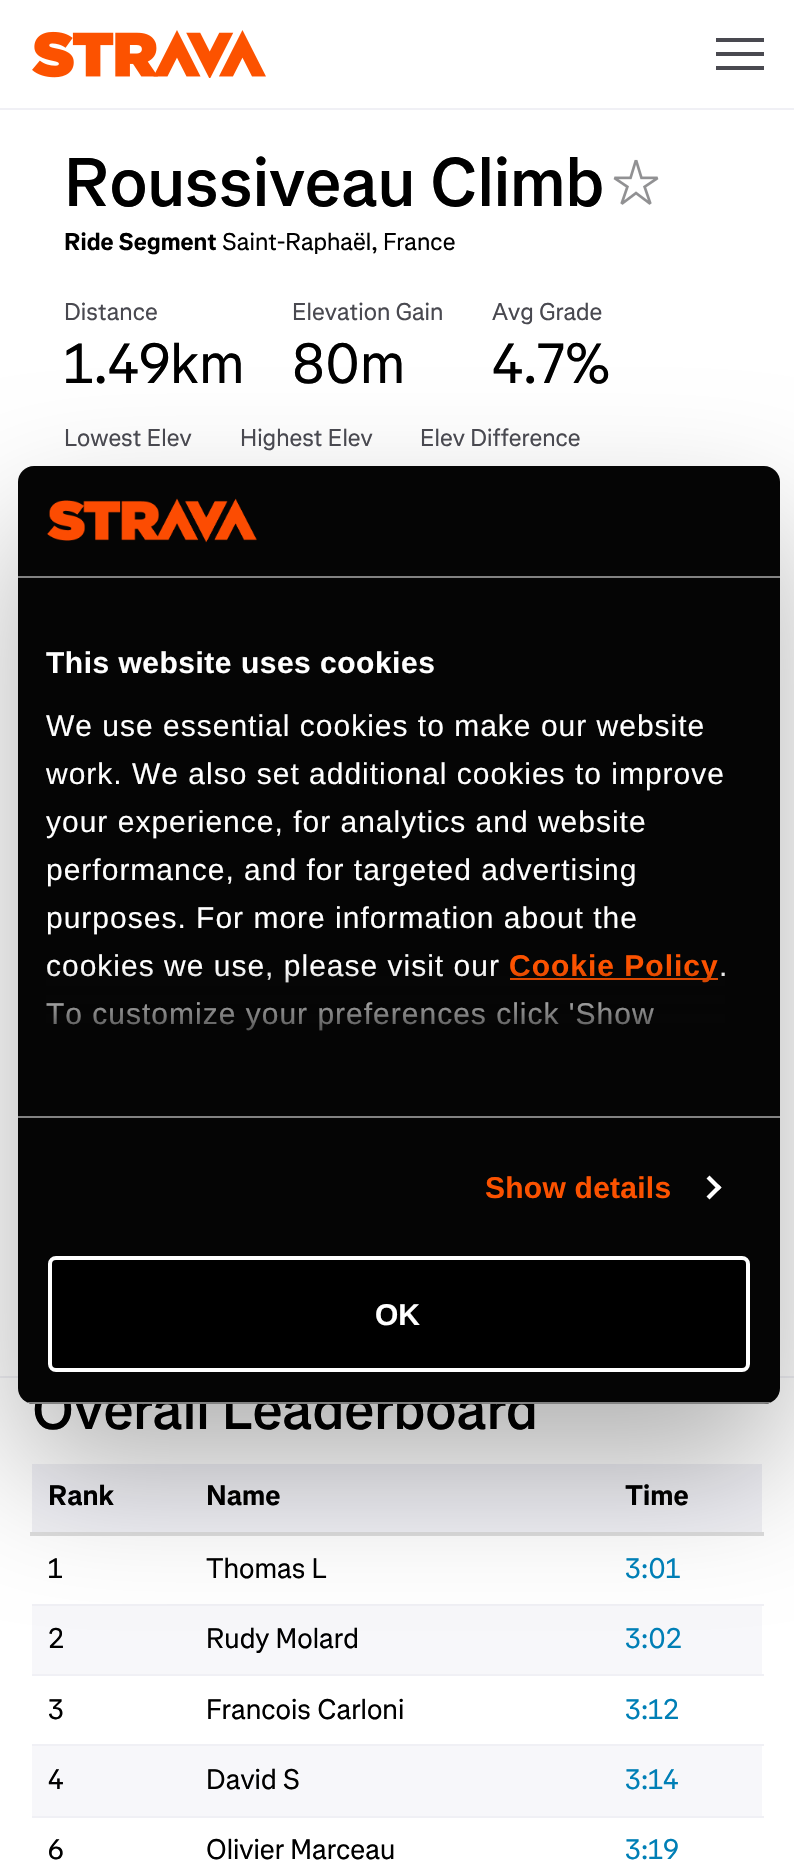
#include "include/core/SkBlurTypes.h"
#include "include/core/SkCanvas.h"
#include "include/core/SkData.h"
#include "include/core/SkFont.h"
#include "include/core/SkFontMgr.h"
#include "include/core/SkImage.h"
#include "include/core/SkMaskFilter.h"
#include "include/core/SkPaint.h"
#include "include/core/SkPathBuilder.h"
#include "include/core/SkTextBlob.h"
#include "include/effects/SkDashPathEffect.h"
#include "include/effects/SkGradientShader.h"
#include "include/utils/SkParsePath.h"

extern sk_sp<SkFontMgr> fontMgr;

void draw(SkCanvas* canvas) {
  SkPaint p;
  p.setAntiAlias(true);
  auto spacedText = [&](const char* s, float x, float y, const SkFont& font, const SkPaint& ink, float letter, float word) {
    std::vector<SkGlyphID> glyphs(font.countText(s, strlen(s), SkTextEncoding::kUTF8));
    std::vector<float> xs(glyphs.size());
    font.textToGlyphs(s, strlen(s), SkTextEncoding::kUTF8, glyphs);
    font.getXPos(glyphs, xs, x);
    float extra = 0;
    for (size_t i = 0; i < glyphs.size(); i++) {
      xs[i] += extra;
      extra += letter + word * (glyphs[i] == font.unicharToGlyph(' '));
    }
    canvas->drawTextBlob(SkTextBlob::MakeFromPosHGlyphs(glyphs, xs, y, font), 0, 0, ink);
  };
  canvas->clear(SK_ColorWHITE);
  p.setColor(SkColorSetRGB(240, 240, 245));
  canvas->drawRect(SkRect::MakeLTRB(0, 108, 794, 110), p);
  canvas->drawImageRect(SkImages::DeferredFromEncodedData(SkData::MakeFromFileName("images/1.png")), SkRect::MakeLTRB(32, 30, 266, 78), SkSamplingOptions());
  p.setColor(SkColorSetRGB(73, 73, 80));
  canvas->drawRect(SkRect::MakeLTRB(716, 38, 764, 42), p);
  canvas->drawRect(SkRect::MakeLTRB(716, 66, 764, 70), p);
  canvas->drawRect(SkRect::MakeLTRB(716, 52, 764, 56), p);
  canvas->drawImageRect(SkImages::DeferredFromEncodedData(SkData::MakeFromFileName("images/2.png")), SkRect::MakeLTRB(613, 159, 659, 205), SkSamplingOptions());
  p.setColor(SkColorSetRGB(240, 240, 245));
  canvas->drawRect(SkRect::MakeLTRB(0, 1376, 794, 1378), p);
  canvas->drawRect(SkRect::MakeLTRB(32, 1464, 762, 1532), p);
  p.setColor(SkColorSetRGB(221, 221, 221));
  canvas->drawRect(SkRect::MakeLTRB(30, 1532, 764, 1536), p);
  p.setColor(SkColorSetRGB(240, 240, 245));
  canvas->drawRect(SkRect::MakeLTRB(32, 1604, 764, 1606), p);
  p.setColor(SkColorSetRGB(247, 247, 250));
  canvas->drawRect(SkRect::MakeLTRB(32, 1606, 762, 1674), p);
  p.setColor(SkColorSetRGB(240, 240, 245));
  canvas->drawRect(SkRect::MakeLTRB(32, 1674, 764, 1676), p);
  canvas->drawRect(SkRect::MakeLTRB(32, 1744, 764, 1746), p);
  p.setColor(SkColorSetRGB(247, 247, 250));
  canvas->drawRect(SkRect::MakeLTRB(32, 1746, 762, 1816), p);
  p.setColor(SkColorSetRGB(240, 240, 245));
  canvas->drawRect(SkRect::MakeLTRB(32, 1816, 764, 1818), p);
  p.setColor(SkColorSetARGB(77, 0, 0, 0));
  p.setMaskFilter(SkMaskFilter::MakeBlur(kNormal_SkBlurStyle, 68));
  canvas->drawRoundRect(SkRect::MakeLTRB(18, 530, 780, 1468), 16, 16, p);
  p.setMaskFilter(nullptr);
  SkFont font1(fontMgr->matchFamilyStyle("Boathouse", SkFontStyle(500, SkFontStyle::kNormal_Width, SkFontStyle::kUpright_Slant)), 68);
  font1.setSubpixel(true);
  p.setColor(SK_ColorBLACK);
  canvas->drawString("Roussiveau Climb", 64, 206, font1, p);
  SkFont font2(fontMgr->matchFamilyStyle("Boathouse", SkFontStyle::Bold()), 24);
  font2.setSubpixel(true);
  canvas->drawString("Ride Segment", 64, 250, font2, p);
  SkFont font3(fontMgr->matchFamilyStyle("Boathouse", SkFontStyle::Normal()), 24);
  font3.setSubpixel(true);
  canvas->drawString("Saint-Raphaël, France", 222, 250, font3, p);
  p.setColor(SkColorSetRGB(73, 73, 80));
  canvas->drawString("Distance", 64, 320, font3, p);
  SkFont font4(fontMgr->matchFamilyStyle("Boathouse", SkFontStyle::Normal()), 56);
  font4.setSubpixel(true);
  p.setColor(SK_ColorBLACK);
  canvas->drawString("1.49km", 64, 383, font4, p);
  p.setColor(SkColorSetRGB(73, 73, 80));
  canvas->drawString("Elevation Gain", 292, 320, font3, p);
  p.setColor(SK_ColorBLACK);
  canvas->drawString("80m", 292, 383, font4, p);
  p.setColor(SkColorSetRGB(73, 73, 80));
  canvas->drawString("Avg Grade", 492, 320, font3, p);
  p.setColor(SK_ColorBLACK);
  canvas->drawString("4.7%", 492, 383, font4, p);
  p.setColor(SkColorSetRGB(73, 73, 80));
  canvas->drawString("Lowest Elev", 64, 446, font3, p);
  canvas->drawString("Highest Elev", 240, 446, font3, p);
  canvas->drawString("Elev Difference", 420, 446, font3, p);
  SkFont font5(fontMgr->matchFamilyStyle("Boathouse", SkFontStyle(500, SkFontStyle::kNormal_Width, SkFontStyle::kUpright_Slant)), 56);
  font5.setSubpixel(true);
  p.setColor(SK_ColorBLACK);
  canvas->drawString("Overall Leaderboard", 32, 1429, font5, p);
  SkFont font6(fontMgr->matchFamilyStyle("Boathouse", SkFontStyle::Bold()), 28);
  font6.setSubpixel(true);
  canvas->drawString("Rank", 48, 1505, font6, p);
  canvas->drawString("Name", 206, 1505, font6, p);
  canvas->drawString("Time", 625, 1505, font6, p);
  SkFont font7(fontMgr->matchFamilyStyle("Boathouse", SkFontStyle::Normal()), 28);
  font7.setSubpixel(true);
  canvas->drawString("1", 48, 1578, font7, p);
  canvas->drawString("Thomas L", 206, 1578, font7, p);
  p.setColor(SkColorSetRGB(0, 127, 182));
  canvas->drawString("3:01", 625, 1578, font7, p);
  p.setColor(SK_ColorBLACK);
  canvas->drawString("2", 48, 1648, font7, p);
  canvas->drawString("Rudy Molard", 206, 1648, font7, p);
  p.setColor(SkColorSetRGB(0, 127, 182));
  canvas->drawString("3:02", 625, 1648, font7, p);
  p.setColor(SK_ColorBLACK);
  canvas->drawString("3", 48, 1719, font7, p);
  canvas->drawString("Francois Carloni", 206, 1719, font7, p);
  p.setColor(SkColorSetRGB(0, 127, 182));
  canvas->drawString("3:12", 625, 1719, font7, p);
  p.setColor(SK_ColorBLACK);
  canvas->drawString("4", 48, 1789, font7, p);
  canvas->drawString("David S", 206, 1789, font7, p);
  p.setColor(SkColorSetRGB(0, 127, 182));
  canvas->drawString("3:14", 625, 1789, font7, p);
  p.setColor(SK_ColorBLACK);
  canvas->drawString("6", 48, 1859, font7, p);
  canvas->drawString("Olivier Marceau", 206, 1859, font7, p);
  p.setColor(SkColorSetRGB(0, 127, 182));
  canvas->drawString("3:19", 625, 1859, font7, p);
  p.setColor(SkColorSetRGB(5, 5, 5));
  canvas->drawRoundRect(SkRect::MakeLTRB(18, 466, 780, 1404), 16, 16, p);
  p.setColor(SkColorSetRGB(130, 130, 130));
  canvas->drawRect(SkRect::MakeLTRB(18, 576, 780, 578), p);
  canvas->drawImageRect(SkImages::DeferredFromEncodedData(SkData::MakeFromFileName("images/3.png")), SkRect::MakeLTRB(47, 498, 257, 543), SkSamplingOptions());
  canvas->drawRect(SkRect::MakeLTRB(18, 1116, 780, 1118), p);
  SkFont font8(fontMgr->matchFamilyStyle("Liberation Sans", SkFontStyle::Bold()), 30);
  font8.setSubpixel(true);
  p.setColor(SK_ColorWHITE);
  spacedText("This website uses cookies", 46, 673, font8, p, 0.5f, 0);
  SkFont font9(fontMgr->matchFamilyStyle("Liberation Sans", SkFontStyle::Normal()), 30);
  font9.setSubpixel(true);
  spacedText("We use essential cookies to make our website", 46, 736, font9, p, 1, 0);
  spacedText("work. We also set additional cookies to improve", 46, 784, font9, p, 1, 0);
  spacedText("your experience, for analytics and website", 46, 832, font9, p, 1, 0);
  spacedText("performance, and for targeted advertising", 46, 880, font9, p, 1, 0);
  spacedText("purposes. For more information about the", 46, 928, font9, p, 1, 0);
  spacedText("cookies we use, please visit our", 46, 976, font9, p, 1, 0);
  p.setColor(SkColorSetRGB(252, 82, 0));
  canvas->drawRect(SkRect::MakeLTRB(510, 978, 718, 980), p);
  spacedText("Cookie Policy", 509, 976, font8, p, 1, 0);
  p.setColor(SK_ColorWHITE);
  spacedText(".", 719, 976, font9, p, 1, 0);
  spacedText("To customize your preferences click 'Show", 46, 1024, font9, p, 1, 0);
  {
    const SkColor colors[] = {SkColorSetRGB(5, 5, 5), SkColorSetARGB(204, 5, 5, 5), SkColorSetARGB(0, 5, 5, 5)};
    const float stops[] = {0, 0.5f, 1};
    const SkPoint ends[] = {{385, 1117}, {385, 967}};
    p.setShader(SkGradientShader::MakeLinear(ends, colors, stops, 3, SkTileMode::kClamp));
    p.setAlpha(255);
  }
  canvas->drawRect(SkRect::MakeLTRB(46, 969, 725, 1031), p);
  p.setShader(nullptr);
  p.setColor(SkColorSetRGB(252, 82, 0));
  spacedText("Show details", 485, 1198, font8, p, 0.25f, 0);
  p.setColor(SK_ColorWHITE);
  canvas->drawPath(SkPathBuilder().moveTo(709.5f, 1175.5f).lineTo(721.5f, 1187.5f).lineTo(718.5f, 1190.5f).lineTo(706.5f, 1178.5f).close().detach(), p);
  canvas->drawPath(SkPathBuilder().moveTo(718.5f, 1184.5f).lineTo(721.5f, 1187.5f).lineTo(709.5f, 1199.5f).lineTo(706.5f, 1196.5f).close().detach(), p);
  canvas->save();
  canvas->clipPath(SkPathBuilder().moveTo(34, 466).lineTo(764, 466).cubicTo(773, 466, 780, 473, 780, 482).lineTo(780, 1388).cubicTo(780, 1397, 773, 1404, 764, 1404).lineTo(34, 1404).cubicTo(25, 1404, 18, 1397, 18, 1388).lineTo(18, 482).cubicTo(18, 473, 25, 466, 34, 466).close().detach(), true);
  p.setColor(SkColorSetRGB(130, 130, 130));
  canvas->drawRect(SkRect::MakeLTRB(18, 1402, 780, 1404), p);
  canvas->restore();
  p.setColor(SK_ColorBLACK);
  canvas->drawRoundRect(SkRect::MakeLTRB(50, 1258, 748, 1370), 6, 6, p);
  p.setStyle(SkPaint::kStroke_Style);
  p.setStrokeWidth(4);
  p.setColor(SK_ColorWHITE);
  canvas->drawRoundRect(SkRect::MakeLTRB(50, 1258, 748, 1370), 6, 6, p);
  p.setStyle(SkPaint::kFill_Style);
  canvas->drawString("OK", 375, 1325, font8, p);
}
